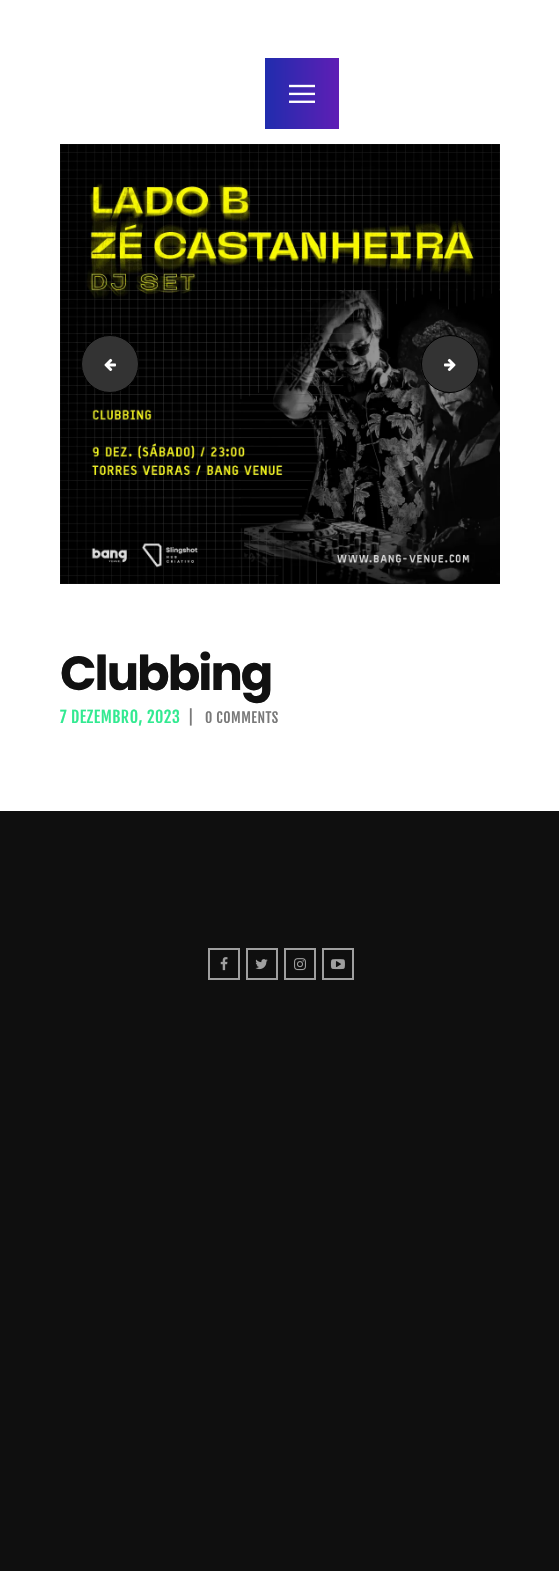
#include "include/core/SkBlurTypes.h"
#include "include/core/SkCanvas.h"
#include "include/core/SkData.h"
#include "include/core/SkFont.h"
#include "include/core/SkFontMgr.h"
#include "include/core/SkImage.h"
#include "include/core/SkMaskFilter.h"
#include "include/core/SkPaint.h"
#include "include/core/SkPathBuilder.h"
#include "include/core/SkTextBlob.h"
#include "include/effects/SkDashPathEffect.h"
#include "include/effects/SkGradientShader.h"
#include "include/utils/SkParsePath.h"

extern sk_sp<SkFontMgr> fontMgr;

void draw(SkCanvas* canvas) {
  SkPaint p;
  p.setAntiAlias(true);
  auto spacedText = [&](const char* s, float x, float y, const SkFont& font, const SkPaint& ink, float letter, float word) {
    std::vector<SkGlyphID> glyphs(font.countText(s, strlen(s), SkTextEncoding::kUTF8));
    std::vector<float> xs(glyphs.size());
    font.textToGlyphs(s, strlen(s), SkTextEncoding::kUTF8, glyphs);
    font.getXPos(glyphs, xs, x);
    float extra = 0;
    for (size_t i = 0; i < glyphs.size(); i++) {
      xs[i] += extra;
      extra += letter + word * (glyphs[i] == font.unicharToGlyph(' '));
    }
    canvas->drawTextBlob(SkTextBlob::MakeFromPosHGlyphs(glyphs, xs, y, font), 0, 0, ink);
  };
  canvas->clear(SK_ColorWHITE);
  {
    const SkColor colors[] = {SkColorSetRGB(50, 234, 145), SkColorSetRGB(37, 201, 122), SkColorSetRGB(29, 45, 173), SkColorSetRGB(95, 30, 181)};
    const float stops[] = {0, 0.5f, 0.5f, 1};
    const SkPoint ends[] = {{184, 94}, {339, 94}};
    p.setShader(SkGradientShader::MakeLinear(ends, colors, stops, 4, SkTileMode::kClamp));
    p.setAlpha(255);
  }
  canvas->drawRect(SkRect::MakeLTRB(265, 58, 339, 129), p);
  canvas->drawImageRect(SkImages::DeferredFromEncodedData(SkData::MakeFromFileName("images/1.png")), SkRect::MakeLTRB(289, 84, 315, 103), SkSamplingOptions());
  canvas->drawImageRect(SkImages::DeferredFromEncodedData(SkData::MakeFromFileName("images/2.png")), SkRect::MakeLTRB(60, 144, 500, 584), SkSamplingOptions());
  p.setShader(nullptr);
  p.setColor(SkColorSetRGB(51, 51, 51));
  canvas->drawCircle(110, 364, 28.5f, p);
  p.setStyle(SkPaint::kStroke_Style);
  p.setStrokeWidth(1);
  p.setColor(SK_ColorBLACK);
  canvas->drawCircle(110, 364, 28.5f, p);
  canvas->drawImageRect(SkImages::DeferredFromEncodedData(SkData::MakeFromFileName("images/3.png")), SkRect::MakeLTRB(104, 358, 116, 371), SkSamplingOptions());
  p.setStyle(SkPaint::kFill_Style);
  p.setColor(SkColorSetRGB(51, 51, 51));
  canvas->drawCircle(450, 364, 28.5f, p);
  p.setStyle(SkPaint::kStroke_Style);
  p.setColor(SK_ColorBLACK);
  canvas->drawCircle(450, 364, 28.5f, p);
  canvas->drawImageRect(SkImages::DeferredFromEncodedData(SkData::MakeFromFileName("images/4.png")), SkRect::MakeLTRB(444, 358, 456, 371), SkSamplingOptions());
  p.setStyle(SkPaint::kFill_Style);
  p.setColor(SkColorSetRGB(15, 15, 15));
  canvas->drawRect(SkRect::MakeLTRB(0, 811, 559, 1571), p);
  p.setStyle(SkPaint::kStroke_Style);
  p.setStrokeWidth(2);
  p.setColor(SkColorSetRGB(159, 159, 159));
  canvas->drawRect(SkRect::MakeLTRB(209, 949, 239, 979), p);
  canvas->drawImageRect(SkImages::DeferredFromEncodedData(SkData::MakeFromFileName("images/5.png")), SkRect::MakeLTRB(220, 957, 228, 971), SkSamplingOptions());
  canvas->drawRect(SkRect::MakeLTRB(247, 949, 277, 979), p);
  canvas->drawImageRect(SkImages::DeferredFromEncodedData(SkData::MakeFromFileName("images/6.png")), SkRect::MakeLTRB(255, 959, 268, 970), SkSamplingOptions());
  canvas->drawRect(SkRect::MakeLTRB(285, 949, 315, 979), p);
  canvas->drawImageRect(SkImages::DeferredFromEncodedData(SkData::MakeFromFileName("images/7.png")), SkRect::MakeLTRB(294, 958, 306, 971), SkSamplingOptions());
  canvas->drawRect(SkRect::MakeLTRB(323, 949, 353, 979), p);
  canvas->drawImageRect(SkImages::DeferredFromEncodedData(SkData::MakeFromFileName("images/8.png")), SkRect::MakeLTRB(330, 959, 345, 970), SkSamplingOptions());
  SkFont font1(fontMgr->matchFamilyStyle("Poppins", SkFontStyle::Bold()), 48);
  font1.setSubpixel(true);
  p.setStyle(SkPaint::kFill_Style);
  p.setColor(SkColorSetRGB(17, 17, 17));
  spacedText("Clubbing", 60, 690, font1, p, -2, 0);
  SkFont font2(fontMgr->matchFamilyStyle("Fjalla One", SkFontStyle::Normal()), 16);
  font2.setSubpixel(true);
  p.setColor(SkColorSetRGB(50, 234, 145));
  spacedText("7 DEZEMBRO, 2023", 60, 723, font2, p, 0.5f, 0);
  p.setColor(SkColorSetRGB(121, 121, 121));
  spacedText("|", 188, 723, font2, p, 0.5f, 0);
  SkFont font3(fontMgr->matchFamilyStyle("Fjalla One", SkFontStyle::Normal()), 14);
  font3.setSubpixel(true);
  spacedText("0 COMMENTS", 205, 723, font3, p, 0.5f, 0);
}
